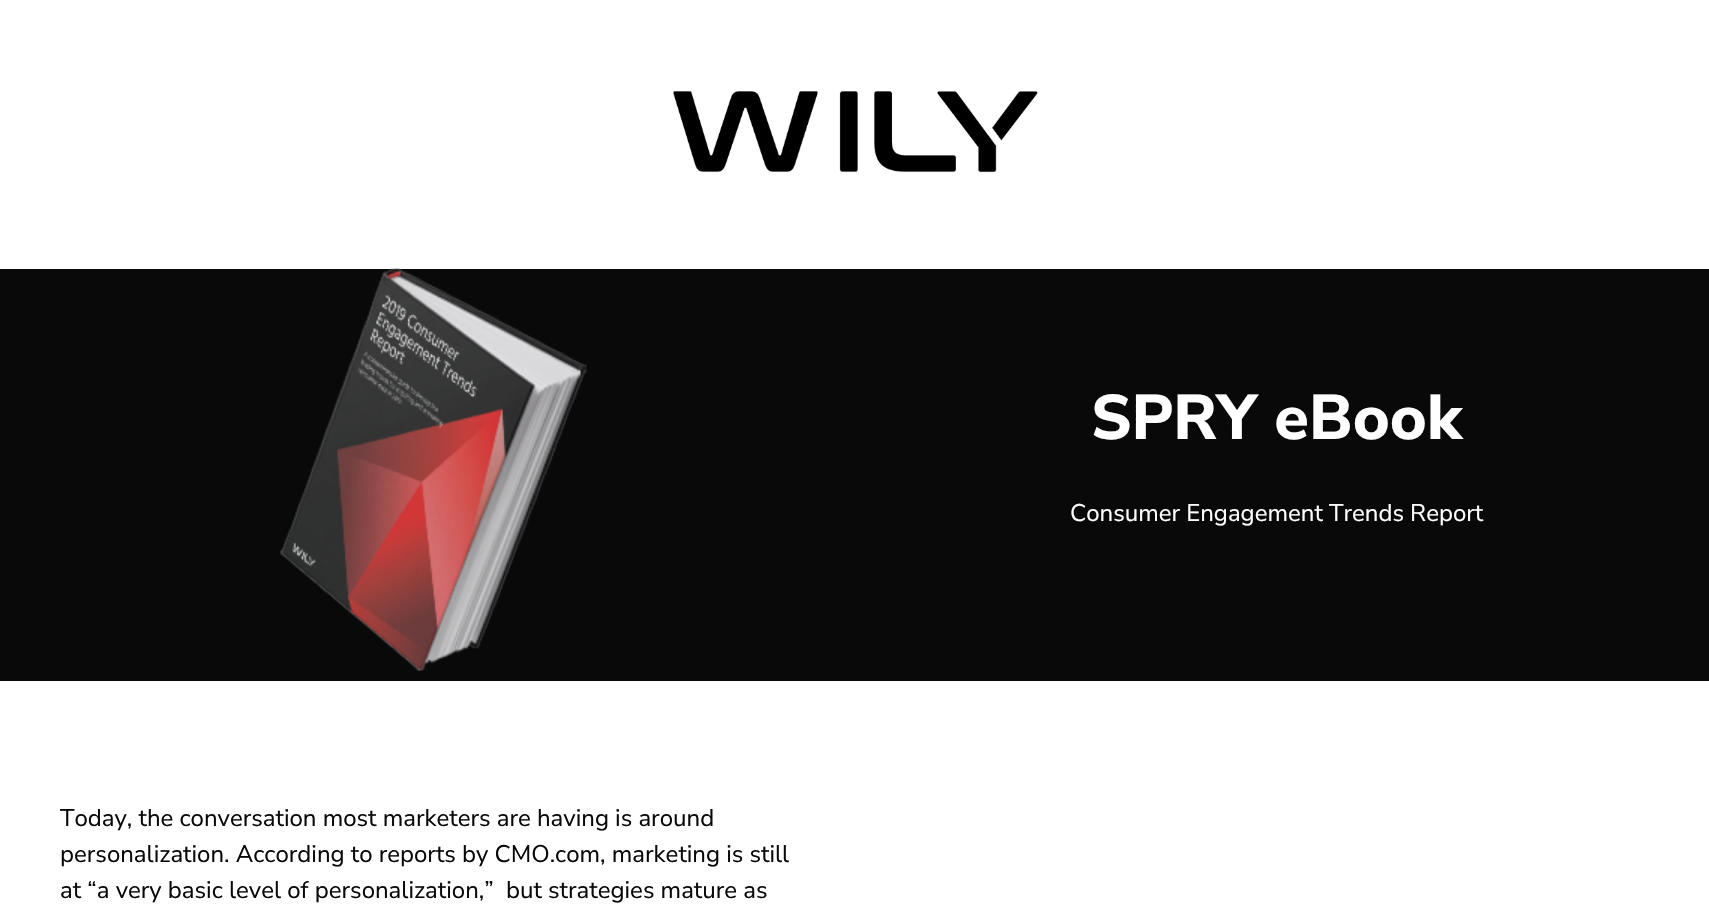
#include "include/core/SkBlurTypes.h"
#include "include/core/SkCanvas.h"
#include "include/core/SkData.h"
#include "include/core/SkFont.h"
#include "include/core/SkFontMgr.h"
#include "include/core/SkImage.h"
#include "include/core/SkMaskFilter.h"
#include "include/core/SkPaint.h"
#include "include/core/SkPathBuilder.h"
#include "include/core/SkTextBlob.h"
#include "include/effects/SkDashPathEffect.h"
#include "include/effects/SkGradientShader.h"
#include "include/utils/SkParsePath.h"

extern sk_sp<SkFontMgr> fontMgr;

void draw(SkCanvas* canvas) {
  SkPaint p;
  p.setAntiAlias(true);
  canvas->clear(SK_ColorWHITE);
  canvas->drawImageRect(SkImages::DeferredFromEncodedData(SkData::MakeFromFileName("images/1.png")), SkRect::MakeLTRB(673, 91, 1038, 173), SkSamplingOptions());
  p.setColor(SkColorSetRGB(9, 9, 9));
  canvas->drawRect(SkRect::MakeLTRB(0, 269, 1709, 681), p);
  canvas->drawImageRect(SkImages::DeferredFromEncodedData(SkData::MakeFromFileName("images/2.png")), SkRect::MakeLTRB(280, 268, 587, 671), SkSamplingOptions());
  SkFont font1(fontMgr->matchFamilyStyle("Nunito Sans", SkFontStyle(800, SkFontStyle::kNormal_Width, SkFontStyle::kUpright_Slant)), 63);
  font1.setSubpixel(true);
  p.setColor(SK_ColorWHITE);
  canvas->drawString("SPRY eBook", 1091, 439, font1, p);
  SkFont font2(fontMgr->matchFamilyStyle("Nunito Sans", SkFontStyle::Normal()), 24);
  font2.setSubpixel(true);
  canvas->drawString("Consumer Engagement Trends Report", 1070, 521, font2, p);
  p.setColor(SkColorSetRGB(9, 9, 9));
  canvas->drawString("Today, the conversation most marketers are having is around", 60, 826, font2, p);
  canvas->drawString("personalization. According to reports by CMO.com, marketing is still", 60, 862, font2, p);
  canvas->drawString("at “a very basic level of personalization,”  but strategies mature as", 60, 898, font2, p);
}
